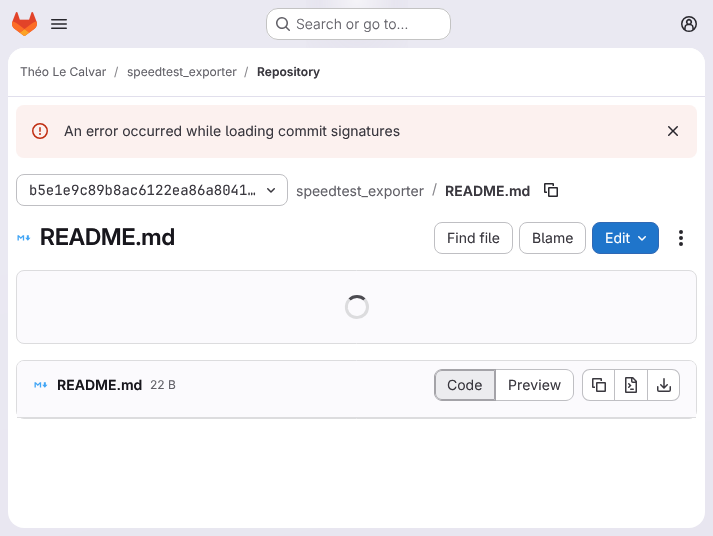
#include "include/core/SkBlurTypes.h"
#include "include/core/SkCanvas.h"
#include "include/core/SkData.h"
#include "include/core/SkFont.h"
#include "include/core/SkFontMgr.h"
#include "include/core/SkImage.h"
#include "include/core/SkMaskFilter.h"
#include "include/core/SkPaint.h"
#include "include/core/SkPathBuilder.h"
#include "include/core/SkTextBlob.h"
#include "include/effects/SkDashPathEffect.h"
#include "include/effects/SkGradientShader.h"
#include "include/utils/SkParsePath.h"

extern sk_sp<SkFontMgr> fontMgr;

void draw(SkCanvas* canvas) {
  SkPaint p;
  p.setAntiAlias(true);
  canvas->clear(SK_ColorWHITE);
  {
    const SkColor colors[] = {SkColorSetRGB(232, 230, 240), SkColorSetRGB(234, 233, 242)};
    const float stops[] = {0, 0.7f};
    const SkPoint ends[] = {{413, 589}, {300, -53}};
    p.setShader(SkGradientShader::MakeLinear(ends, colors, stops, 2, SkTileMode::kClamp));
    p.setAlpha(255);
  }
  canvas->drawRect(SkRect::MakeLTRB(0, 0, 713, 536), p);
  {
    const SkColor colors[] = {SkColorSetRGB(228, 226, 237), SkColorSetARGB(0, 228, 226, 237)};
    const float stops[] = {0, 0.2f};
    SkMatrix m = SkMatrix::Translate(357, 0).preScale(357, 536);
    p.setShader(SkGradientShader::MakeRadial({0, 0}, 1, colors, stops, 2, SkTileMode::kClamp, 0, &m));
    p.setAlpha(255);
  }
  canvas->drawRect(SkRect::MakeLTRB(306, 0, 408, 48), p);
  {
    const SkColor colors[] = {SkColorSetRGB(228, 226, 236), SkColorSetARGB(0, 228, 226, 236)};
    const float stops[] = {0, 0.14f};
    SkMatrix m = SkMatrix::Translate(357, 0).preScale(357, 536);
    p.setShader(SkGradientShader::MakeRadial({0, 0}, 1, colors, stops, 2, SkTileMode::kClamp, 0, &m));
    p.setAlpha(255);
  }
  canvas->drawRect(SkRect::MakeLTRB(346, 11, 368, 12), p);
  {
    const SkColor colors[] = {SkColorSetARGB(153, 255, 255, 255), SkColorSetARGB(0, 255, 255, 255)};
    const float stops[] = {0, 0.06f};
    p.setShader(SkGradientShader::MakeRadial({357, 0}, 644, colors, stops, 2, SkTileMode::kClamp));
    p.setAlpha(255);
  }
  canvas->drawRect(SkRect::MakeLTRB(320, 0, 394, 8), p);
  canvas->drawImageRect(SkImages::DeferredFromEncodedData(SkData::MakeFromFileName("images/1.png")), SkRect::MakeLTRB(12, 12, 37, 36), SkSamplingOptions());
  canvas->drawImageRect(SkImages::DeferredFromEncodedData(SkData::MakeFromFileName("images/2.png")), SkRect::MakeLTRB(51, 19, 67, 29), SkSamplingOptions());
  p.setShader(nullptr);
  p.setColor(SK_ColorWHITE);
  canvas->drawRoundRect(SkRect::MakeLTRB(266, 8, 451, 40), 12, 12, p);
  p.setStyle(SkPaint::kStroke_Style);
  p.setStrokeWidth(1);
  p.setColor(SkColorSetARGB(61, 5, 5, 6));
  canvas->drawRoundRect(SkRect::MakeLTRB(266.5f, 8.5f, 450.5f, 39.5f), 11.5f, 11.5f, p);
  canvas->drawImageRect(SkImages::DeferredFromEncodedData(SkData::MakeFromFileName("images/3.png")), SkRect::MakeLTRB(276, 17, 290, 31), SkSamplingOptions());
  canvas->drawImageRect(SkImages::DeferredFromEncodedData(SkData::MakeFromFileName("images/4.png")), SkRect::MakeLTRB(681, 16, 697, 32), SkSamplingOptions());
  p.setStyle(SkPaint::kFill_Style);
  p.setColor(SK_ColorWHITE);
  canvas->drawRoundRect(SkRect::MakeLTRB(8, 48, 705, 528), 16, 16, p);
  canvas->drawPath(SkPathBuilder().moveTo(24, 48).lineTo(689, 48).cubicTo(698, 48, 705, 55, 705, 64).lineTo(705, 97).lineTo(8, 97).lineTo(8, 64).cubicTo(8, 55, 15, 48, 24, 48).close().detach(), p);
  p.setColor(SkColorSetRGB(225, 223, 236));
  canvas->drawRect(SkRect::MakeLTRB(8, 96, 705, 97), p);
  p.setColor(SkColorSetRGB(252, 241, 239));
  canvas->drawRoundRect(SkRect::MakeLTRB(16, 105, 697, 158), 8, 8, p);
  canvas->drawImageRect(SkImages::DeferredFromEncodedData(SkData::MakeFromFileName("images/5.png")), SkRect::MakeLTRB(32, 123, 48, 139), SkSamplingOptions());
  canvas->drawImageRect(SkImages::DeferredFromEncodedData(SkData::MakeFromFileName("images/6.png")), SkRect::MakeLTRB(668, 126, 678, 136), SkSamplingOptions());
  p.setStyle(SkPaint::kStroke_Style);
  p.setColor(SkColorSetRGB(191, 191, 195));
  canvas->drawRoundRect(SkRect::MakeLTRB(16.5f, 174.5f, 287.5f, 205.5f), 7.5f, 7.5f, p);
  canvas->drawImageRect(SkImages::DeferredFromEncodedData(SkData::MakeFromFileName("images/7.png")), SkRect::MakeLTRB(267, 188, 275, 193), SkSamplingOptions());
  canvas->drawImageRect(SkImages::DeferredFromEncodedData(SkData::MakeFromFileName("images/8.png")), SkRect::MakeLTRB(544, 183, 558, 197), SkSamplingOptions());
  canvas->drawImageRect(SkImages::DeferredFromEncodedData(SkData::MakeFromFileName("images/9.png")), SkRect::MakeLTRB(17, 235, 31, 241), SkSamplingOptions());
  canvas->drawRoundRect(SkRect::MakeLTRB(434.5f, 222.5f, 512.5f, 253.5f), 7.5f, 7.5f, p);
  canvas->drawRoundRect(SkRect::MakeLTRB(519.5f, 222.5f, 585.5f, 253.5f), 7.5f, 7.5f, p);
  p.setStyle(SkPaint::kFill_Style);
  p.setColor(SkColorSetRGB(31, 117, 203));
  canvas->drawRoundRect(SkRect::MakeLTRB(592.5f, 222.5f, 658.5f, 253.5f), 7.5f, 7.5f, p);
  p.setStyle(SkPaint::kStroke_Style);
  p.setColor(SkColorSetRGB(47, 104, 180));
  canvas->drawRoundRect(SkRect::MakeLTRB(592.5f, 222.5f, 658.5f, 253.5f), 7.5f, 7.5f, p);
  canvas->drawImageRect(SkImages::DeferredFromEncodedData(SkData::MakeFromFileName("images/10.png")), SkRect::MakeLTRB(638, 236, 646, 241), SkSamplingOptions());
  canvas->drawImageRect(SkImages::DeferredFromEncodedData(SkData::MakeFromFileName("images/11.png")), SkRect::MakeLTRB(679, 230, 683, 246), SkSamplingOptions());
  p.setStyle(SkPaint::kFill_Style);
  p.setColor(SkColorSetRGB(251, 250, 253));
  canvas->drawRoundRect(SkRect::MakeLTRB(16.5f, 270.5f, 696.5f, 343.5f), 7.5f, 7.5f, p);
  p.setStyle(SkPaint::kStroke_Style);
  p.setColor(SkColorSetRGB(220, 220, 222));
  canvas->drawRoundRect(SkRect::MakeLTRB(16.5f, 270.5f, 696.5f, 343.5f), 7.5f, 7.5f, p);
  p.setStrokeWidth(3);
  p.setColor(SkColorSetRGB(76, 75, 81));
  canvas->drawPath(SkPathBuilder().moveTo(349.5f, 299.5f).cubicTo(353.5f, 295.5f, 360.5f, 295.5f, 364.5f, 299.5f).detach(), p);
  p.setColor(SkColorSetRGB(220, 220, 222));
  canvas->drawPath(SkPathBuilder().moveTo(364.5f, 299.5f).cubicTo(366.5f, 301.5f, 367.5f, 304, 367.5f, 307).cubicTo(367.5f, 319.5f, 349, 321.5f, 346.5f, 309).cubicTo(346, 305.5f, 347, 302, 349.5f, 299.5f).detach(), p);
  p.setStrokeWidth(1);
  canvas->drawRoundRect(SkRect::MakeLTRB(16.5f, 360.5f, 696.5f, 418.5f), 7.5f, 7.5f, p);
  p.setStyle(SkPaint::kFill_Style);
  p.setColor(SkColorSetRGB(251, 250, 253));
  canvas->drawPath(SkPathBuilder().moveTo(24, 361).lineTo(689, 361).cubicTo(693, 361, 696, 364, 696, 368).lineTo(696, 418).lineTo(17, 418).lineTo(17, 368).cubicTo(17, 364, 20, 361, 24, 361).close().detach(), p);
  p.setColor(SkColorSetRGB(220, 220, 222));
  canvas->drawRect(SkRect::MakeLTRB(17, 417, 696, 418), p);
  canvas->drawImageRect(SkImages::DeferredFromEncodedData(SkData::MakeFromFileName("images/12.png")), SkRect::MakeLTRB(34, 382, 48, 388), SkSamplingOptions());
  p.setColor(SkColorSetRGB(236, 236, 239));
  canvas->drawPath(SkPathBuilder().moveTo(442, 370.5f).lineTo(494.5f, 370.5f).lineTo(494.5f, 399.5f).lineTo(442, 399.5f).cubicTo(438.5f, 399.5f, 435.5f, 396.5f, 435.5f, 393).lineTo(435.5f, 377).cubicTo(435.5f, 373.5f, 438.5f, 370.5f, 442, 370.5f).close().detach(), p);
  p.setStyle(SkPaint::kStroke_Style);
  p.setColor(SkColorSetRGB(164, 163, 168));
  canvas->drawPath(SkPathBuilder().moveTo(442, 370.5f).lineTo(494.5f, 370.5f).lineTo(494.5f, 399.5f).lineTo(442, 399.5f).cubicTo(438.5f, 399.5f, 435.5f, 396.5f, 435.5f, 393).lineTo(435.5f, 377).cubicTo(435.5f, 373.5f, 438.5f, 370.5f, 442, 370.5f).close().detach(), p);
  p.setStyle(SkPaint::kFill_Style);
  canvas->drawPath(SkPathBuilder(SkPathFillType::kEvenOdd).moveTo(442, 369).lineTo(495, 369).lineTo(495, 401).lineTo(442, 401).cubicTo(438, 401, 434, 397, 434, 393).lineTo(434, 377).cubicTo(434, 373, 438, 369, 442, 369).close().moveTo(442, 370).lineTo(495, 370).lineTo(495, 400).lineTo(442, 400).cubicTo(438, 400, 435, 397, 435, 393).lineTo(435, 377).cubicTo(435, 373, 438, 370, 442, 370).close().detach(), p);
  p.setColor(SK_ColorWHITE);
  canvas->drawPath(SkPathBuilder().moveTo(496, 370).lineTo(566, 370).cubicTo(570, 370, 573, 373, 573, 377).lineTo(573, 393).cubicTo(573, 397, 570, 400, 566, 400).lineTo(496, 400).close().detach(), p);
  p.setColor(SkColorSetRGB(191, 191, 195));
  canvas->drawPath(SkPathBuilder(SkPathFillType::kEvenOdd).moveTo(496, 369).lineTo(566, 369).cubicTo(570, 369, 574, 373, 574, 377).lineTo(574, 393).cubicTo(574, 397, 570, 401, 566, 401).lineTo(496, 401).close().moveTo(496, 370).lineTo(566, 370).cubicTo(570, 370, 573, 373, 573, 377).lineTo(573, 393).cubicTo(573, 397, 570, 400, 566, 400).lineTo(496, 400).close().detach(), p);
  p.setColor(SkColorSetRGB(164, 163, 168));
  canvas->drawRect(SkRect::MakeLTRB(495, 369, 496, 401), p);
  p.setColor(SK_ColorWHITE);
  canvas->drawPath(SkPathBuilder().moveTo(590, 370).lineTo(614, 370).lineTo(614, 400).lineTo(590, 400).cubicTo(586, 400, 583, 397, 583, 393).lineTo(583, 377).cubicTo(583, 373, 586, 370, 590, 370).close().detach(), p);
  p.setColor(SkColorSetRGB(191, 191, 195));
  canvas->drawPath(SkPathBuilder(SkPathFillType::kEvenOdd).moveTo(590, 369).lineTo(614, 369).lineTo(614, 401).lineTo(590, 401).cubicTo(585.5f, 401, 582, 397.5f, 582, 393).lineTo(582, 377).cubicTo(582, 372.5f, 585.5f, 369, 590, 369).close().moveTo(590, 370).lineTo(614, 370).lineTo(614, 400).lineTo(590, 400).cubicTo(586, 400, 583, 397, 583, 393).lineTo(583, 377).cubicTo(583, 373, 586, 370, 590, 370).close().detach(), p);
  canvas->drawImageRect(SkImages::DeferredFromEncodedData(SkData::MakeFromFileName("images/13.png")), SkRect::MakeLTRB(592, 378, 606, 392), SkSamplingOptions());
  p.setColor(SK_ColorWHITE);
  canvas->drawRect(SkRect::MakeLTRB(615, 370, 647, 400), p);
  p.setColor(SkColorSetRGB(191, 191, 195));
  canvas->drawRect(SkRect::MakeLTRB(615, 369, 647, 370), p);
  canvas->drawRect(SkRect::MakeLTRB(615, 400, 647, 401), p);
  canvas->drawRect(SkRect::MakeLTRB(614, 369, 615, 401), p);
  canvas->drawImageRect(SkImages::DeferredFromEncodedData(SkData::MakeFromFileName("images/14.png")), SkRect::MakeLTRB(625, 377, 637, 393), SkSamplingOptions());
  p.setColor(SK_ColorWHITE);
  canvas->drawPath(SkPathBuilder().moveTo(648, 370).lineTo(672, 370).cubicTo(676, 370, 679, 373, 679, 377).lineTo(679, 393).cubicTo(679, 397, 676, 400, 672, 400).lineTo(648, 400).close().detach(), p);
  p.setColor(SkColorSetRGB(191, 191, 195));
  canvas->drawPath(SkPathBuilder(SkPathFillType::kEvenOdd).moveTo(648, 369).lineTo(672, 369).cubicTo(676.5f, 369, 680, 372.5f, 680, 377).lineTo(680, 393).cubicTo(680, 397.5f, 676.5f, 401, 672, 401).lineTo(648, 401).close().moveTo(648, 370).lineTo(672, 370).cubicTo(676, 370, 679, 373, 679, 377).lineTo(679, 393).cubicTo(679, 397, 676, 400, 672, 400).lineTo(648, 400).close().detach(), p);
  canvas->drawRect(SkRect::MakeLTRB(647, 369, 648, 401), p);
  canvas->drawImageRect(SkImages::DeferredFromEncodedData(SkData::MakeFromFileName("images/15.png")), SkRect::MakeLTRB(657, 378, 671, 392), SkSamplingOptions());
  SkFont font1(fontMgr->matchFamilyStyle("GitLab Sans", SkFontStyle(300, SkFontStyle::kNormal_Width, SkFontStyle::kUpright_Slant)), 14);
  font1.setSubpixel(true);
  p.setColor(SkColorSetRGB(98, 97, 104));
  canvas->drawString("Search or go to…", 296, 29, font1, p);
  SkFont font2(fontMgr->matchFamilyStyle("GitLab Sans", SkFontStyle::Normal()), 12);
  font2.setSubpixel(true);
  canvas->drawString("Théo Le Calvar", 20, 76, font2, p);
  p.setColor(SkColorSetRGB(137, 136, 141));
  canvas->drawString("/", 114, 76, font2, p);
  p.setColor(SkColorSetRGB(98, 97, 104));
  canvas->drawString("speedtest_exporter", 127, 76, font2, p);
  p.setColor(SkColorSetRGB(137, 136, 141));
  canvas->drawString("/", 244, 76, font2, p);
  SkFont font3(fontMgr->matchFamilyStyle("GitLab Sans", SkFontStyle(600, SkFontStyle::kNormal_Width, SkFontStyle::kUpright_Slant)), 12);
  font3.setSubpixel(true);
  p.setColor(SkColorSetRGB(58, 56, 63));
  canvas->drawString("Repository", 257, 76, font3, p);
  SkFont font4(fontMgr->matchFamilyStyle("GitLab Sans", SkFontStyle::Normal()), 14);
  font4.setSubpixel(true);
  canvas->drawString("An error occurred while loading commit signatures", 64, 136, font4, p);
  SkFont font5(fontMgr->matchFamilyStyle("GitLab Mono", SkFontStyle::Normal()), 14);
  font5.setSubpixel(true);
  canvas->drawString("b5e1e9c89b8ac6122ea86a8041…", 29, 195, font5, p);
  p.setColor(SkColorSetRGB(98, 97, 104));
  canvas->drawString("speedtest_exporter", 296, 196, font4, p);
  p.setColor(SkColorSetRGB(137, 136, 141));
  canvas->drawString("/", 432, 194, font4, p);
  SkFont font6(fontMgr->matchFamilyStyle("GitLab Sans", SkFontStyle(600, SkFontStyle::kNormal_Width, SkFontStyle::kUpright_Slant)), 14);
  font6.setSubpixel(true);
  p.setColor(SkColorSetRGB(58, 56, 63));
  canvas->drawString("README.md", 445, 196, font6, p);
  SkFont font7(fontMgr->matchFamilyStyle("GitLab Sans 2", SkFontStyle(600, SkFontStyle::kNormal_Width, SkFontStyle::kUpright_Slant)), 23);
  font7.setSubpixel(true);
  p.setColor(SkColorSetRGB(24, 23, 29));
  canvas->drawString("README.md", 40, 245, font7, p);
  p.setColor(SkColorSetRGB(58, 56, 63));
  canvas->drawString("Find file", 447, 243, font4, p);
  canvas->drawString("Blame", 532, 243, font4, p);
  p.setColor(SK_ColorWHITE);
  canvas->drawString("Edit", 605, 243, font4, p);
  p.setColor(SkColorSetRGB(24, 23, 29));
  canvas->drawString("README.md", 57, 390, font6, p);
  p.setColor(SkColorSetRGB(98, 97, 104));
  canvas->drawString("22 B", 150, 389, font2, p);
  p.setColor(SkColorSetRGB(58, 56, 63));
  canvas->drawString("Code", 447, 390, font4, p);
  canvas->drawString("Preview", 508, 390, font4, p);
}
